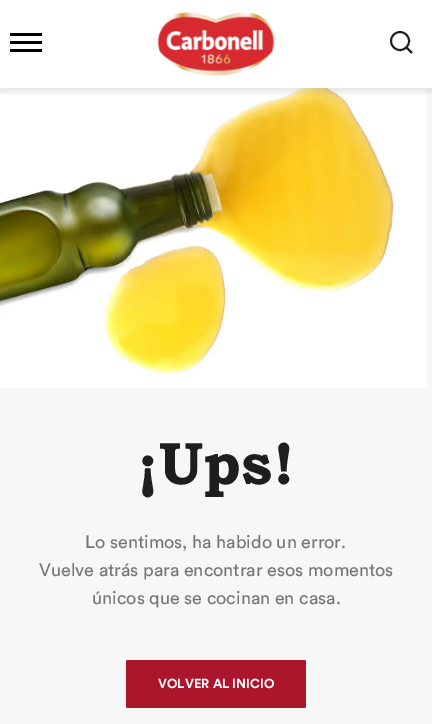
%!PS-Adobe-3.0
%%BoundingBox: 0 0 432 724
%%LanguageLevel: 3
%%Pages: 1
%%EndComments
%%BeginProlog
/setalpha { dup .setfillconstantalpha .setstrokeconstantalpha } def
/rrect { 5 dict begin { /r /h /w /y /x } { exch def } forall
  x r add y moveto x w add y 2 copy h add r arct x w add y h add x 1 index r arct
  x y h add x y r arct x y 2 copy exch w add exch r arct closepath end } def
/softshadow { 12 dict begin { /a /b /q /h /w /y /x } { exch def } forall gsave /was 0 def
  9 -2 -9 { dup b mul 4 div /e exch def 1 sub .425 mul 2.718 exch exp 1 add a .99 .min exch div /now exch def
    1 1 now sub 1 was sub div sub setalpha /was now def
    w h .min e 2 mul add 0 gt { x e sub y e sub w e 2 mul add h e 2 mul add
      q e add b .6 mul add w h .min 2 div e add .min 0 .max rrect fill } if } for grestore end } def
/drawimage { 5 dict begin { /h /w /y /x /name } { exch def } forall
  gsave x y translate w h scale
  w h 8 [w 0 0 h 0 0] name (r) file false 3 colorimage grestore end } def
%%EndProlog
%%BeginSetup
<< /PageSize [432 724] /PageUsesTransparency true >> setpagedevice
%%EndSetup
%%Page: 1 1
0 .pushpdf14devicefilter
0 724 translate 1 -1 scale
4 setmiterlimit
1 setgray
0 0 432 724 rectfill
0.969 setgray
0 88 432 636 rectfill
(images/2.raw) 0 88 427 300 drawimage
gsave
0 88 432 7 rectclip
0 setgray
0 4 432 88 0 3.5 0.1 softshadow
grestore
0 setgray
10 33 32 3 rectfill
10 41 32 3 rectfill
10 49 32 3 rectfill
(images/1.raw) 157 12 118 64 drawimage
0.118 setgray
1.9 setlinewidth
newpath 400 41 9 0 360 arc closepath stroke
newpath 412 53 moveto 406.5 47.5 lineto stroke
0.675 0.086 0.173 setrgbcolor
126 660 180 48 2 rrect fill
/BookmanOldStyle-Bold [60 0 0 -60 0 0] selectfont
0.118 setgray
137 484 moveto (¡Ups!) show
/Circular-Regular [18 0 0 -18 0 0] selectfont
0.459 setgray
85 548 moveto (Lo sentimos, ha habido un error.) show
39 576 moveto (Vuelve atrás para encontrar esos momentos) show
92 604 moveto (únicos que se cocinan en casa.) show
/Circular-Bold [13 0 0 -13 0 0] selectfont
1 setgray
158 688 moveto (VOLVER AL INICIO) show
.poppdf14devicefilter showpage
%%EOF
